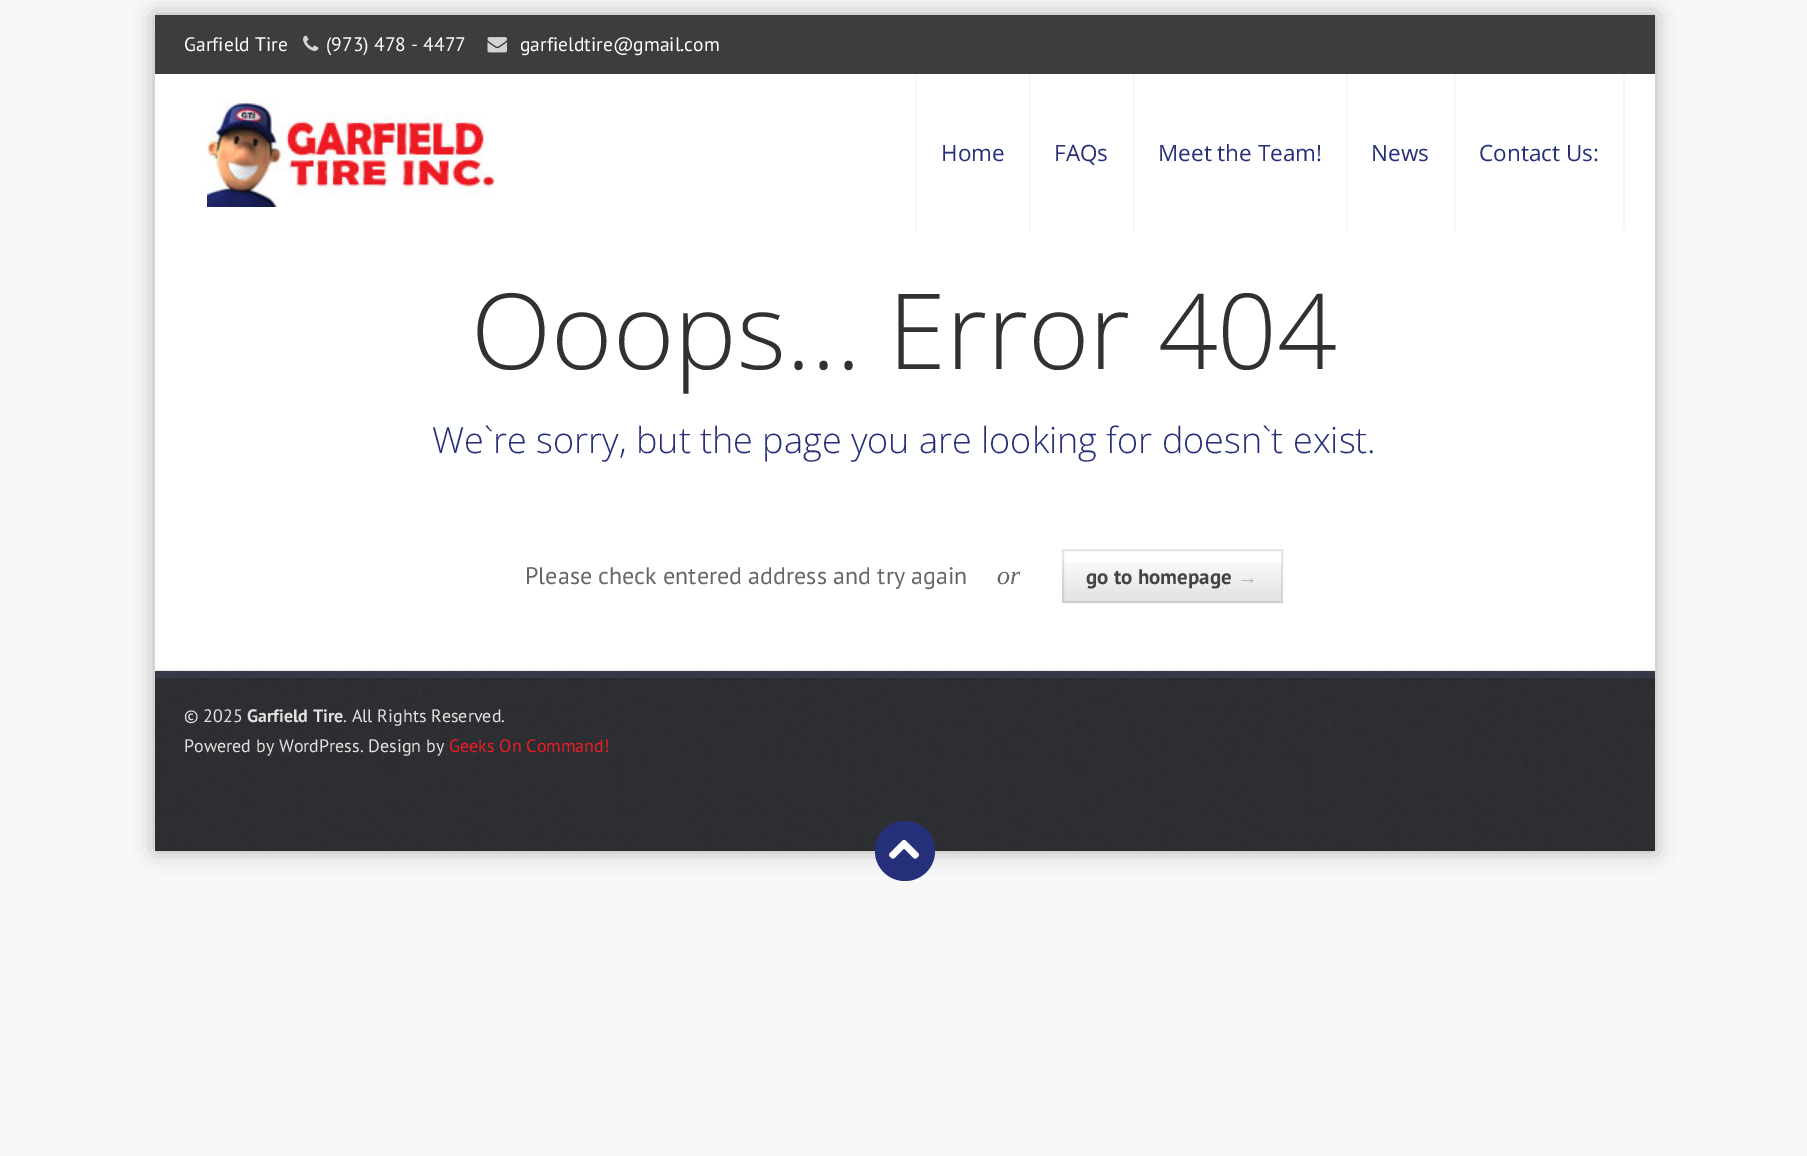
%!PS-Adobe-3.0
%%BoundingBox: 0 0 1807 1156
%%LanguageLevel: 3
%%Pages: 1
%%EndComments
%%BeginProlog
/setalpha { dup .setfillconstantalpha .setstrokeconstantalpha } def
/rrect { 5 dict begin { /r /h /w /y /x } { exch def } forall
  x r add y moveto x w add y 2 copy h add r arct x w add y h add x 1 index r arct
  x y h add x y r arct x y 2 copy exch w add exch r arct closepath end } def
/softshadow { 12 dict begin { /a /b /q /h /w /y /x } { exch def } forall gsave /was 0 def
  9 -2 -9 { dup b mul 4 div /e exch def 1 sub .425 mul 2.718 exch exp 1 add a .99 .min exch div /now exch def
    1 1 now sub 1 was sub div sub setalpha /was now def
    w h .min e 2 mul add 0 gt { x e sub y e sub w e 2 mul add h e 2 mul add
      q e add b .6 mul add w h .min 2 div e add .min 0 .max rrect fill } if } for grestore end } def
/drawimage { 5 dict begin { /h /w /y /x /name } { exch def } forall
  gsave x y translate w h scale
  w h 8 [w 0 0 h 0 0] name (r) file false 3 colorimage grestore end } def
%%EndProlog
%%BeginSetup
<< /PageSize [1807 1156] /PageUsesTransparency true >> setpagedevice
%%EndSetup
%%Page: 1 1
0 .pushpdf14devicefilter
0 1156 translate 1 -1 scale
4 setmiterlimit
0.973 setgray
0 0 1807 1156 rectfill
0 setgray
155 15 1500 836 0 11 0.3 softshadow
1 setgray
155 74 1500 597 rectfill
0.239 setgray
155 15 1500 59 rectfill
(images/1.raw) 154 15 1 59 drawimage
(images/2.raw) 303 35 16 16 drawimage
(images/3.raw) 487 37 20 16 drawimage
(images/4.raw) 207 100 289 107 drawimage
0.969 setgray
1623 74 2 157 rectfill
915 74 2 157 rectfill
1029 74 2 157 rectfill
1133 74 2 157 rectfill
1346 74 2 157 rectfill
1454 74 2 157 rectfill
(images/5.raw) 1062 562 221 41 drawimage
0.1 setalpha
0 setgray
2 setlinewidth
1063 550 219 52 rectstroke
1 setalpha
0.161 0.173 0.188 setrgbcolor
155 678 1500 173 rectfill
(images/6.raw) 154 670 1501 181 drawimage
0.216 0.224 0.282 setrgbcolor
155 671 1500 7 rectfill
0.09 setalpha
0 setgray
185 678 1439 1 rectfill
1 setalpha
0.149 0.184 0.478 setrgbcolor
newpath 905 851 30 0 360 arc closepath fill
(images/7.raw) 889 839 30 20 drawimage
/PTSans-Regular [19.5 0 0 -19.5 0 0] selectfont
1 setgray
184 51 moveto (Garfield Tire) show
326 51 moveto (\(973\) 478 - 4477) show
520 51 moveto (garfieldtire@gmail.com) show
/OpenSans-Regular [22.5 0 0 -22.5 0 0] selectfont
0.149 0.184 0.478 setrgbcolor
941 161 moveto (Home) show
1054 161 moveto (FAQs) show
1158 161 moveto (Meet the Team!) show
1371 161 moveto (News) show
1479 161 moveto (Contact Us:) show
/OpenSans-Light [105 0 0 -105 0 0] selectfont
0.192 setgray
471 369 moveto (Ooops... Error 404) show
/OpenSans-Light [36 0 0 -36 0 0] selectfont
0.149 0.184 0.478 setrgbcolor
432 453 moveto (We`re sorry, but the page you are looking for doesn`t exist.) show
/PTSans-Regular [24 0 0 -24 0 0] selectfont
0.4 setgray
525 584 moveto (Please check entered address and try again) show
/LiberationSerif-Italic [26 0 0 -26 0 0] selectfont
997 584 moveto (or) show
/PTSans-Bold [21 0 0 -21 0 0] selectfont
0.271 0.267 0.267 setrgbcolor
1086 584 moveto (go to homepage) show
/LiberationSans-Bold [21 0 0 -21 0 0] selectfont
0.714 setgray
1237 584 moveto (→) show
/PTSans-Regular [18 0 0 -18 0 0] selectfont
0.882 setgray
184 722 moveto (© 2025) show
/PTSans-Bold [18 0 0 -18 0 0] selectfont
247 722 moveto (Garfield Tire) show
/PTSans-Regular [18 0 0 -18 0 0] selectfont
343 722 moveto (. All Rights Reserved.) show
184 752 moveto (Powered by WordPress. Design by) show
0.929 0.11 0.141 setrgbcolor
449 752 moveto (Geeks On Command!) show
.poppdf14devicefilter showpage
%%EOF
